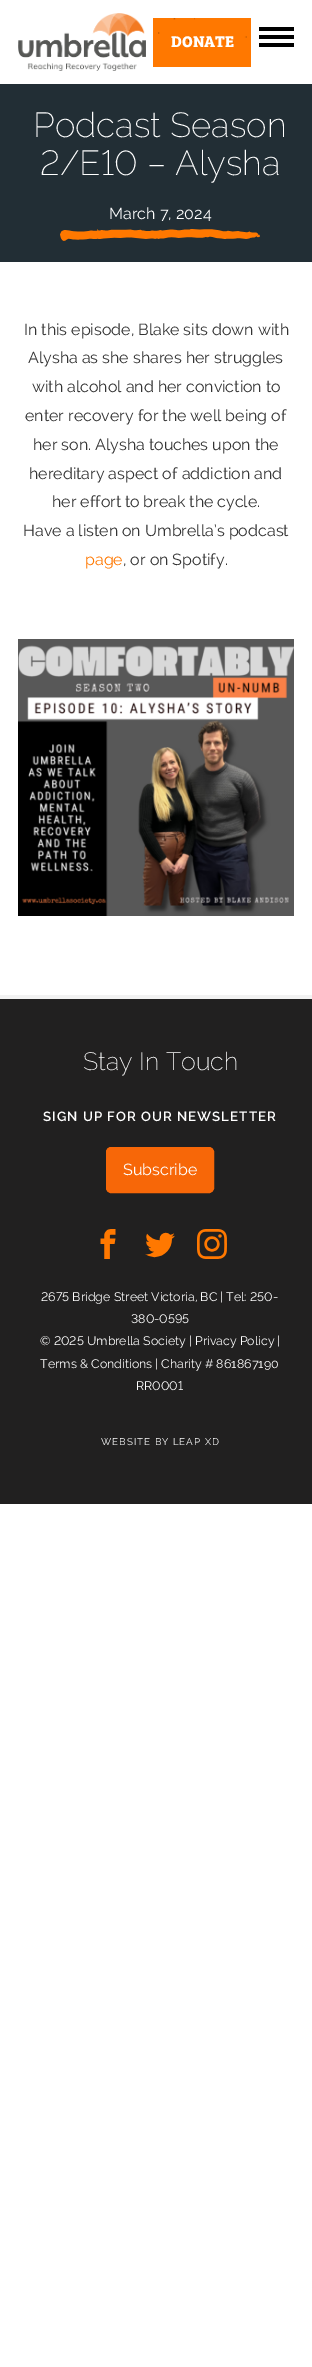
%!PS-Adobe-3.0
%%BoundingBox: 0 0 312 2367
%%LanguageLevel: 3
%%Pages: 1
%%EndComments
%%BeginProlog
/rrect { 5 dict begin { /r /h /w /y /x } { exch def } forall
  x r add y moveto x w add y 2 copy h add r arct x w add y h add x 1 index r arct
  x y h add x y r arct x y 2 copy exch w add exch r arct closepath end } def
/drawimage { 5 dict begin { /h /w /y /x /name } { exch def } forall
  gsave x y translate w h scale
  w h 8 [w 0 0 h 0 0] name (r) file false 3 colorimage grestore end } def
%%EndProlog
%%BeginSetup
<< /PageSize [312 2367] >> setpagedevice
%%EndSetup
%%Page: 1 1
0 2367 translate 1 -1 scale
4 setmiterlimit
1 setgray
0 0 312 2367 rectfill
(images/1.raw) 18 13 128 58 drawimage
1 0.471 0 setrgbcolor
153 18 98 49 rectfill
(images/2.raw) 158 18 89 25 drawimage
0 setgray
259 27 35 4 rectfill
259 35 35 4 rectfill
259 43 35 4 rectfill
0.133 0.18 0.208 setrgbcolor
0 84 312 178 rectfill
(images/3.raw) 60 229 200 12 drawimage
(images/4.raw) 18 639 276 277 drawimage
0.129 0.125 0.125 setrgbcolor
0 999 312 505 rectfill
0.949 setgray
0 995 312 4 rectfill
0.969 0.404 0.031 setrgbcolor
106.5 1147.5 107 45 4.5 rrect gsave fill grestore
stroke
(images/5.raw) 100 1229 16 30 drawimage
(images/6.raw) 145 1232 30 26 drawimage
(images/7.raw) 197 1229 30 30 drawimage
/BreeSerif-Bold [16 0 0 -16 0 0] selectfont
1 setgray
171 47 moveto (DONATE) show
/Raleway-ExtraLight [34.75 0 0 -34.75 0 0] selectfont
33 137 moveto (Podcast Season) show
/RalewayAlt-ExtraLight [34.75 0 0 -34.75 0 0] selectfont
40 175 moveto (2/E10 – Alysha) show
/Raleway-Regular [16 0 0 -16 0 0] selectfont
109 219 moveto (March 7, 2024) show
0.2 setgray
24 335 moveto (In this episode, Blake sits down with) show
28 363 moveto (Alysha as she shares her struggles) show
32 392 moveto (with alcohol and her conviction to) show
25 421 moveto (enter recovery for the well being of) show
33 450 moveto (her son. Alysha touches upon the) show
29 479 moveto (hereditary aspect of addiction and) show
52 507 moveto -0.25 0 32 (her effort to break the cycle.) widthshow
23 536 moveto (Have a listen on Umbrella’s podcast) show
1 0.471 0 setrgbcolor
85 565 moveto (page) show
0.2 setgray
123 565 moveto (, or on Spotify.) show
/Raleway-ExtraLight [25 0 0 -25 0 0] selectfont
1 setgray
83 1070 moveto (Stay In Touch) show
/Raleway-SemiBold [13.3 0 0 -13.3 0 0] selectfont
43 1121 moveto 1 0 (SIGN UP FOR OUR NEWSLETTER) ashow
/Raleway-Regular [16 0 0 -16 0 0] selectfont
123 1175 moveto (Subscribe) show
/RalewayAlt-Regular [12.4 0 0 -12.4 0 0] selectfont
41 1301 moveto (2675 Bridge Street Victoria, BC | Tel: 250-) show
131 1323 moveto (380-0595) show
40 1345 moveto (© 2025 Umbrella Society |) show
/Raleway-Regular [12.4 0 0 -12.4 0 0] selectfont
195 1345 moveto (Privacy Policy |) show
40 1368 moveto (Terms & Conditions | Charity # 861867190) show
/RalewayAlt-Regular [12.4 0 0 -12.4 0 0] selectfont
136 1390 moveto (RR0001) show
/Raleway-Regular [9.75 0 0 -9.75 0 0] selectfont
101 1445 moveto 1 0 (WEBSITE BY LEAP XD) ashow
showpage
%%EOF
